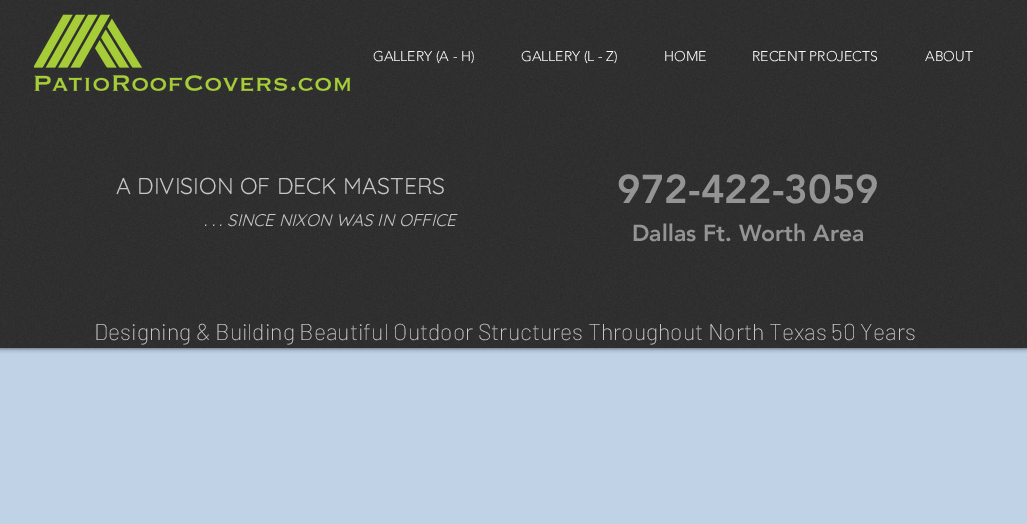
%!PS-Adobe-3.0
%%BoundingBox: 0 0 1027 524
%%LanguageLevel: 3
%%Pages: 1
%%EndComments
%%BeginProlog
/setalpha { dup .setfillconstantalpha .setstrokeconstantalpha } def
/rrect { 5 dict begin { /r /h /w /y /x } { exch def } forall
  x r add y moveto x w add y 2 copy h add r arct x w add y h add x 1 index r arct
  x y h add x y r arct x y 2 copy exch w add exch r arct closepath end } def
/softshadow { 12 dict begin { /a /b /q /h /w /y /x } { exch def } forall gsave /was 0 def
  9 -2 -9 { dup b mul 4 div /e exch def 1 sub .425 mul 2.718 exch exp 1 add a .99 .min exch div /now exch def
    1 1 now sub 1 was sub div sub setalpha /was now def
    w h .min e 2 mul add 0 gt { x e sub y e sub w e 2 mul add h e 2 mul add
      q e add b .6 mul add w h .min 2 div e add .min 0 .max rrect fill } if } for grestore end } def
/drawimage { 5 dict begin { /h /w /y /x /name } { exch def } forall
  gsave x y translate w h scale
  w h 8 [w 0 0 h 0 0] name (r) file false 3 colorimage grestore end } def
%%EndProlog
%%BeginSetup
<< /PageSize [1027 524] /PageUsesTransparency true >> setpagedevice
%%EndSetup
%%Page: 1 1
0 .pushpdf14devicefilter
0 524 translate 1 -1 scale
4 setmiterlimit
0.753 0.824 0.898 setrgbcolor
0 0 1027 524 rectfill
0 setgray
0 0 1027 348 0 2.5 0.7 softshadow
0.184 0.18 0.18 setrgbcolor
0 0 1027 348 rectfill
(images/1.raw) 0 0 1027 348 drawimage
(images/2.raw) 34 14 317 78 drawimage
/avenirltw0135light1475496-Light [14 0 0 -14 0 0] selectfont
1 setgray
373 61 moveto (GALLERY \(A - H\)) show
521 61 moveto (GALLERY \(L - Z\)) show
664 61 moveto (HOME) show
752 61 moveto (RECENT PROJECTS) show
925 61 moveto (ABOUT) show
/Quicksand-Regular [23 0 0 -23 0 0] selectfont
0.776 setgray
116 194 moveto (A DIVISION OF DECK MASTERS) show
/Quicksand-Italic [17 0 0 -17 0 0] selectfont
204 226 moveto (. . . SINCE NIXON WAS IN OFFICE) show
/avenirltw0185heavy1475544-Black [40 0 0 -40 0 0] selectfont
0.58 setgray
617 203 moveto (972-422-3059) show
/avenirltw0185heavy1475544-Black [23 0 0 -23 0 0] selectfont
632 241 moveto (Dallas Ft. Worth Area) show
/Barlow-ExtraLight [23 0 0 -23 0 0] selectfont
0.776 setgray
94 340 moveto (Designing & Building Beautiful Outdoor Structures Throughout North Texas 50 Years) show
.poppdf14devicefilter showpage
%%EOF
